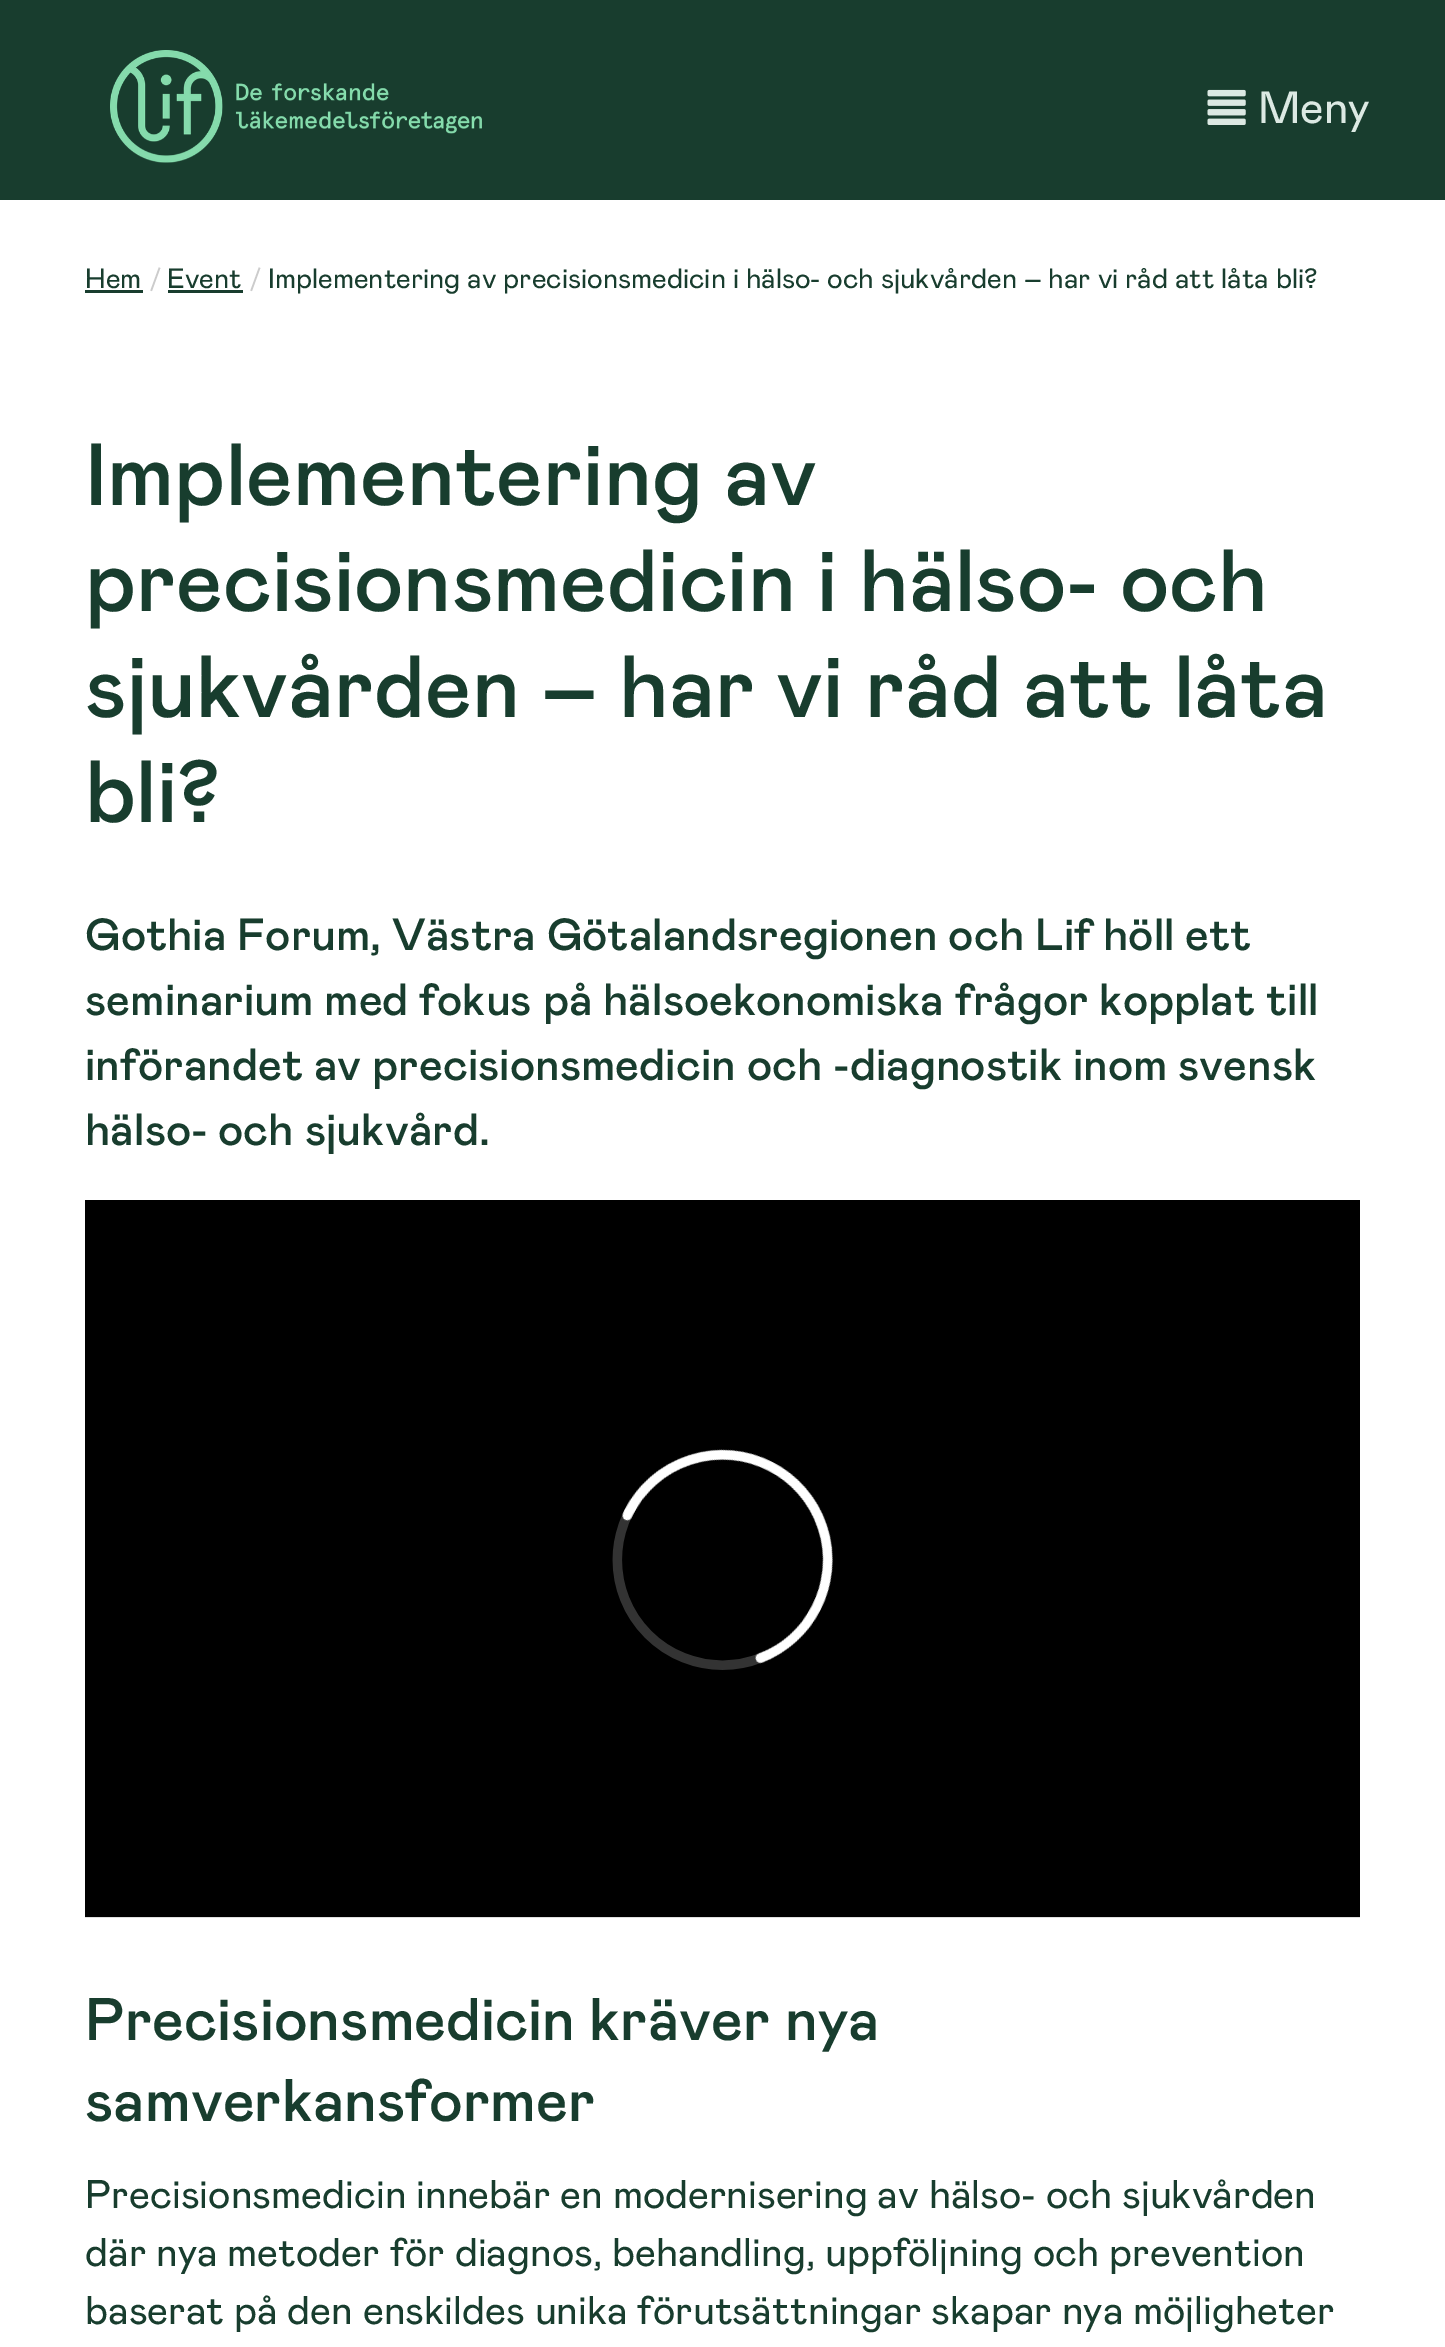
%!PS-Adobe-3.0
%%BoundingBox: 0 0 1445 2347
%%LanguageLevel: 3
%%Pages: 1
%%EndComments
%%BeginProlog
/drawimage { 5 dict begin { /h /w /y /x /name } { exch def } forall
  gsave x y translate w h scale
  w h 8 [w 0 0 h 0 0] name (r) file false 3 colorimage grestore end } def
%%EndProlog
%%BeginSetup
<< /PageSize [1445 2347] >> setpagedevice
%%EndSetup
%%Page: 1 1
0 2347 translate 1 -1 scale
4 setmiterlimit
1 setgray
0 0 1445 2347 rectfill
0.094 0.239 0.18 setrgbcolor
0 0 1445 200 rectfill
(images/1.raw) 110 50 372 113 drawimage
(images/2.raw) 1207 89 39 36 drawimage
85 290 58 3 rectfill
168 290 75 3 rectfill
(images/3.raw) 85 1200 1275 718 drawimage
/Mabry-Regular [45 0 0 -45 0 0] selectfont
0.863 0.914 0.89 setrgbcolor
1258 123 moveto (Meny) show
/Mabry-Regular [28 0 0 -28 0 0] selectfont
0.094 0.239 0.18 setrgbcolor
85 288 moveto (Hem) show
/Mabry-Regular [25 0 0 -25 0 0] selectfont
0.8 setgray
149 288 moveto (/) show
/Mabry-Regular [28 0 0 -28 0 0] selectfont
0.094 0.239 0.18 setrgbcolor
167 288 moveto (Event) show
/Mabry-Regular [25 0 0 -25 0 0] selectfont
0.8 setgray
249 288 moveto (/) show
/Mabry-Regular [28 0 0 -28 0 0] selectfont
0.094 0.239 0.18 setrgbcolor
268 288 moveto (Implementering av precisionsmedicin i hälso- och sjukvården – har vi råd att låta bli?) show
/Mabry-Medium [88 0 0 -88 0 0] selectfont
85 505 moveto (Implementering av) show
85 611 moveto (precisionsmedicin i hälso- och) show
85 717 moveto (sjukvården – har vi råd att låta) show
85 822 moveto (bli?) show
/Mabry-Medium [45 0 0 -45 0 0] selectfont
85 950 moveto (Gothia Forum, Västra Götalandsregionen och Lif höll ett) show
85 1015 moveto (seminarium med fokus på hälsoekonomiska frågor kopplat till) show
85 1080 moveto (införandet av precisionsmedicin och -diagnostik inom svensk) show
85 1145 moveto (hälso- och sjukvård.) show
/Mabry-Medium [60 0 0 -60 0 0] selectfont
85 2040 moveto (Precisionsmedicin kräver nya) show
85 2121 moveto (samverkansformer) show
/Mabry-Regular [40 0 0 -40 0 0] selectfont
85 2208 moveto (Precisionsmedicin innebär en modernisering av hälso- och sjukvården) show
85 2266 moveto (där nya metoder för diagnos, behandling, uppföljning och prevention) show
85 2324 moveto (baserat på den enskildes unika förutsättningar skapar nya möjligheter) show
showpage
%%EOF
